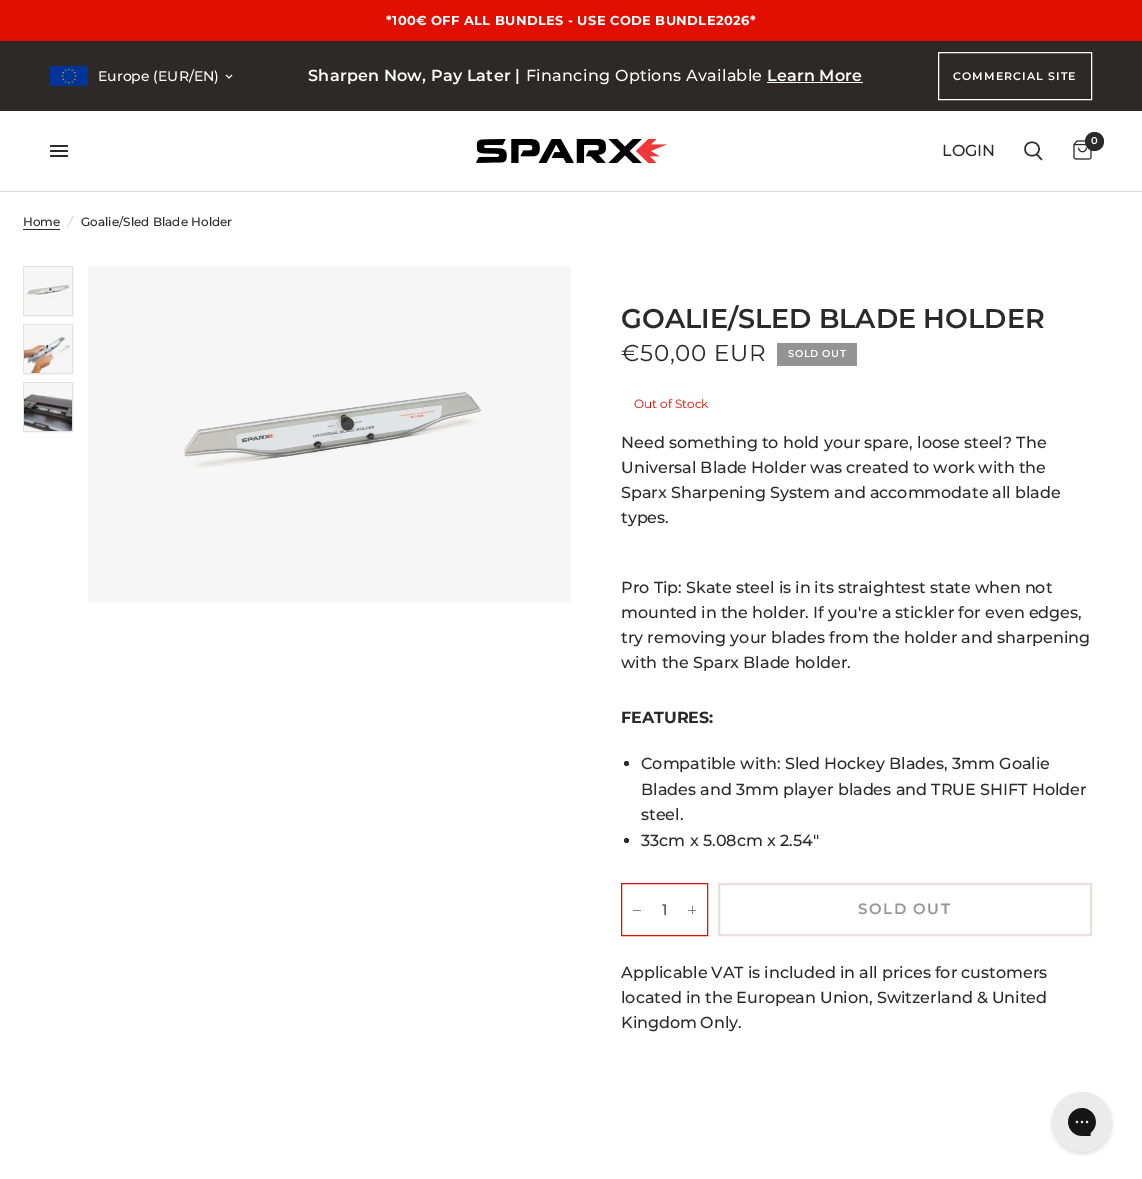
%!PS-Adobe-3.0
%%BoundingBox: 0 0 1142 1179
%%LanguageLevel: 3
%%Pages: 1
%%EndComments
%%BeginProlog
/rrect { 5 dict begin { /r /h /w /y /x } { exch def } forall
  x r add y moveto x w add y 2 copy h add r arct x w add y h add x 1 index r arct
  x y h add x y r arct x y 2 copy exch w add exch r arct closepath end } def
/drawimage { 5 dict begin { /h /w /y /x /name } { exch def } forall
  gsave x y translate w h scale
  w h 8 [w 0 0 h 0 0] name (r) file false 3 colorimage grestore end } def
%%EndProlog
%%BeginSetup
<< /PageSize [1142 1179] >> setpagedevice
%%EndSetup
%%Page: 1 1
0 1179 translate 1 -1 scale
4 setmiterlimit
1 setgray
0 0 1142 1179 rectfill
0.878 0.059 0 setrgbcolor
0 0 1142 41 rectfill
0.176 0.161 0.149 setrgbcolor
0 41 1142 70 rectfill
(images/1.raw) 50 66 38 20 drawimage
1 setgray
newpath 226 75 moveto 229 78 lineto 232 75 lineto stroke
767 82 96 1 rectfill
938.5 52.5 153 47 rectstroke
0.851 0.851 0.839 setrgbcolor
0 191 1142 1 rectfill
0.165 0.165 0.169 setrgbcolor
50 145 18 2 1 rrect fill
50 150 18 2 1 rrect fill
50 155 18 2 1 rrect fill
(images/2.raw) 476 139 191 24 drawimage
1.4 setlinewidth
1 setlinecap
1 setlinejoin
newpath 1037 154.5 moveto 1041.5 159.5 lineto 1039 149 moveto 1039 158 1025 158 1025 149 curveto 1025 140 1039 140 1039 149 curveto closepath stroke
(images/3.raw) 1073 140 19 20 drawimage
newpath 1094.5 141.5 9.5 0 360 arc closepath fill
23 229 37 1 rectfill
0.886 setgray
1 setlinewidth
0 setlinecap
0 setlinejoin
23.5 266.5 49 49 rectstroke
(images/4.raw) 24 267 48 48 drawimage
23.5 324.5 49 49 rectstroke
(images/5.raw) 24 325 48 48 drawimage
23.5 382.5 49 49 rectstroke
(images/6.raw) 24 383 48 48 drawimage
0.969 setgray
88 266 483 337 rectfill
(images/7.raw) 184 392 298 76 drawimage
0.576 setgray
777 343 80 23 rectfill
0.165 0.165 0.169 setrgbcolor
newpath 626.5 763.5 2.5 0 360 arc closepath fill
newpath 626.5 840.5 2.5 0 360 arc closepath fill
0.878 0.059 0 setrgbcolor
621.5 883.5 86 52 rectstroke
0.498 0.498 0.502 setrgbcolor
633 910 8 1 rectfill
692 906 1 8 rectfill
688 910 8 1 rectfill
0.922 0.878 0.878 setrgbcolor
2 setlinewidth
719 884 372 51 rectstroke
(images/8.raw) 1050 1092 64 64 drawimage
/Montserrat-Bold [13 0 0 -13 0 0] selectfont
1 setgray
386 25 moveto 0.4 0 (*100€ OFF ALL BUNDLES - USE CODE BUNDLE2026*) ashow
/Montserrat-Medium [14 0 0 -14 0 0] selectfont
98 81 moveto (Europe \(EUR/EN\)) show
/Montserrat-SemiBold [16 0 0 -16 0 0] selectfont
308 81 moveto -0.5 0 32 0.3 0 (Sharpen Now, Pay Later |) awidthshow
/Montserrat-Medium [16 0 0 -16 0 0] selectfont
526 81 moveto 0.3 0 (Financing Options Available) ashow
/Montserrat-SemiBold [16 0 0 -16 0 0] selectfont
767 81 moveto -1 0 32 0.3 0 (Learn More) awidthshow
/Montserrat-SemiBold [11 0 0 -11 0 0] selectfont
953 80 moveto 1.1 0 (COMMERCIAL SITE) ashow
/Montserrat-Medium [16 0 0 -16 0 0] selectfont
0.165 0.165 0.169 setrgbcolor
942 156 moveto (LOGIN) show
/Montserrat-SemiBold [10 0 0 -10 0 0] selectfont
1 setgray
1091 144 moveto (0) show
/Montserrat-Medium [12 0 0 -12 0 0] selectfont
0.165 0.165 0.169 setrgbcolor
23 226 moveto (Home) show
/Montserrat-MediumItalic [12 0 0 -12 0 0] selectfont
0.831 0.831 0.835 setrgbcolor
68 226 moveto (/) show
/Montserrat-Medium [12 0 0 -12 0 0] selectfont
0.165 0.165 0.169 setrgbcolor
81 226 moveto (Goalie/Sled Blade Holder) show
/Montserrat-SemiBold [27 0 0 -27 0 0] selectfont
621 328 moveto (GOALIE/SLED BLADE HOLDER) show
/Montserrat-Regular [23 0 0 -23 0 0] selectfont
621 361 moveto 0.75 0 (€50,00 EUR) ashow
/Montserrat-SemiBold [10 0 0 -10 0 0] selectfont
1 setgray
788 357 moveto 0.5 0 (SOLD OUT) ashow
/Montserrat-Regular [12 0 0 -12 0 0] selectfont
0.878 0.059 0 setrgbcolor
634 408 moveto (Out of Stock) show
/Montserrat-Medium [16 0 0 -16 0 0] selectfont
0.165 0.165 0.169 setrgbcolor
621 448 moveto (Need something to hold your spare, loose steel? The) show
621 473 moveto -0.25 0 32 (Universal Blade Holder was created to work with the) widthshow
621 498 moveto -0.25 0 32 (Sparx Sharpening System and accommodate all blade) widthshow
621 523 moveto (types.) show
621 593 moveto (Pro Tip:) show
686 593 moveto -0.25 0 32 (Skate steel is in its straightest state when not) widthshow
621 618 moveto -0.1 0 32 (mounted in the holder. If you're a stickler for even edges,) widthshow
621 643 moveto (try removing your blades from the holder and sharpening) show
621 668 moveto (with the Sparx Blade holder.) show
/Montserrat-Bold [16 0 0 -16 0 0] selectfont
621 723 moveto (FEATURES:) show
/Montserrat-Medium [16 0 0 -16 0 0] selectfont
641 769 moveto (Compatible with: Sled Hockey Blades, 3mm Goalie) show
641 795 moveto (Blades and 3mm player blades and TRUE SHIFT Holder) show
641 820 moveto (steel.) show
641 846 moveto (33cm x 5.08cm x 2.54") show
/Montserrat-Regular [15 0 0 -15 0 0] selectfont
662 915 moveto (1) show
/Montserrat-SemiBold [15 0 0 -15 0 0] selectfont
0.584 setgray
858 914 moveto 1.5 0 (SOLD OUT) ashow
/Montserrat-Medium [16 0 0 -16 0 0] selectfont
0.165 0.165 0.169 setrgbcolor
621 978 moveto -0.25 0 32 (Applicable VAT is included in all prices for customers) widthshow
621 1003 moveto -0.25 0 32 (located in the European Union, Switzerland & United) widthshow
621 1028 moveto -1 0 32 (Kingdom Only.) widthshow
showpage
%%EOF
